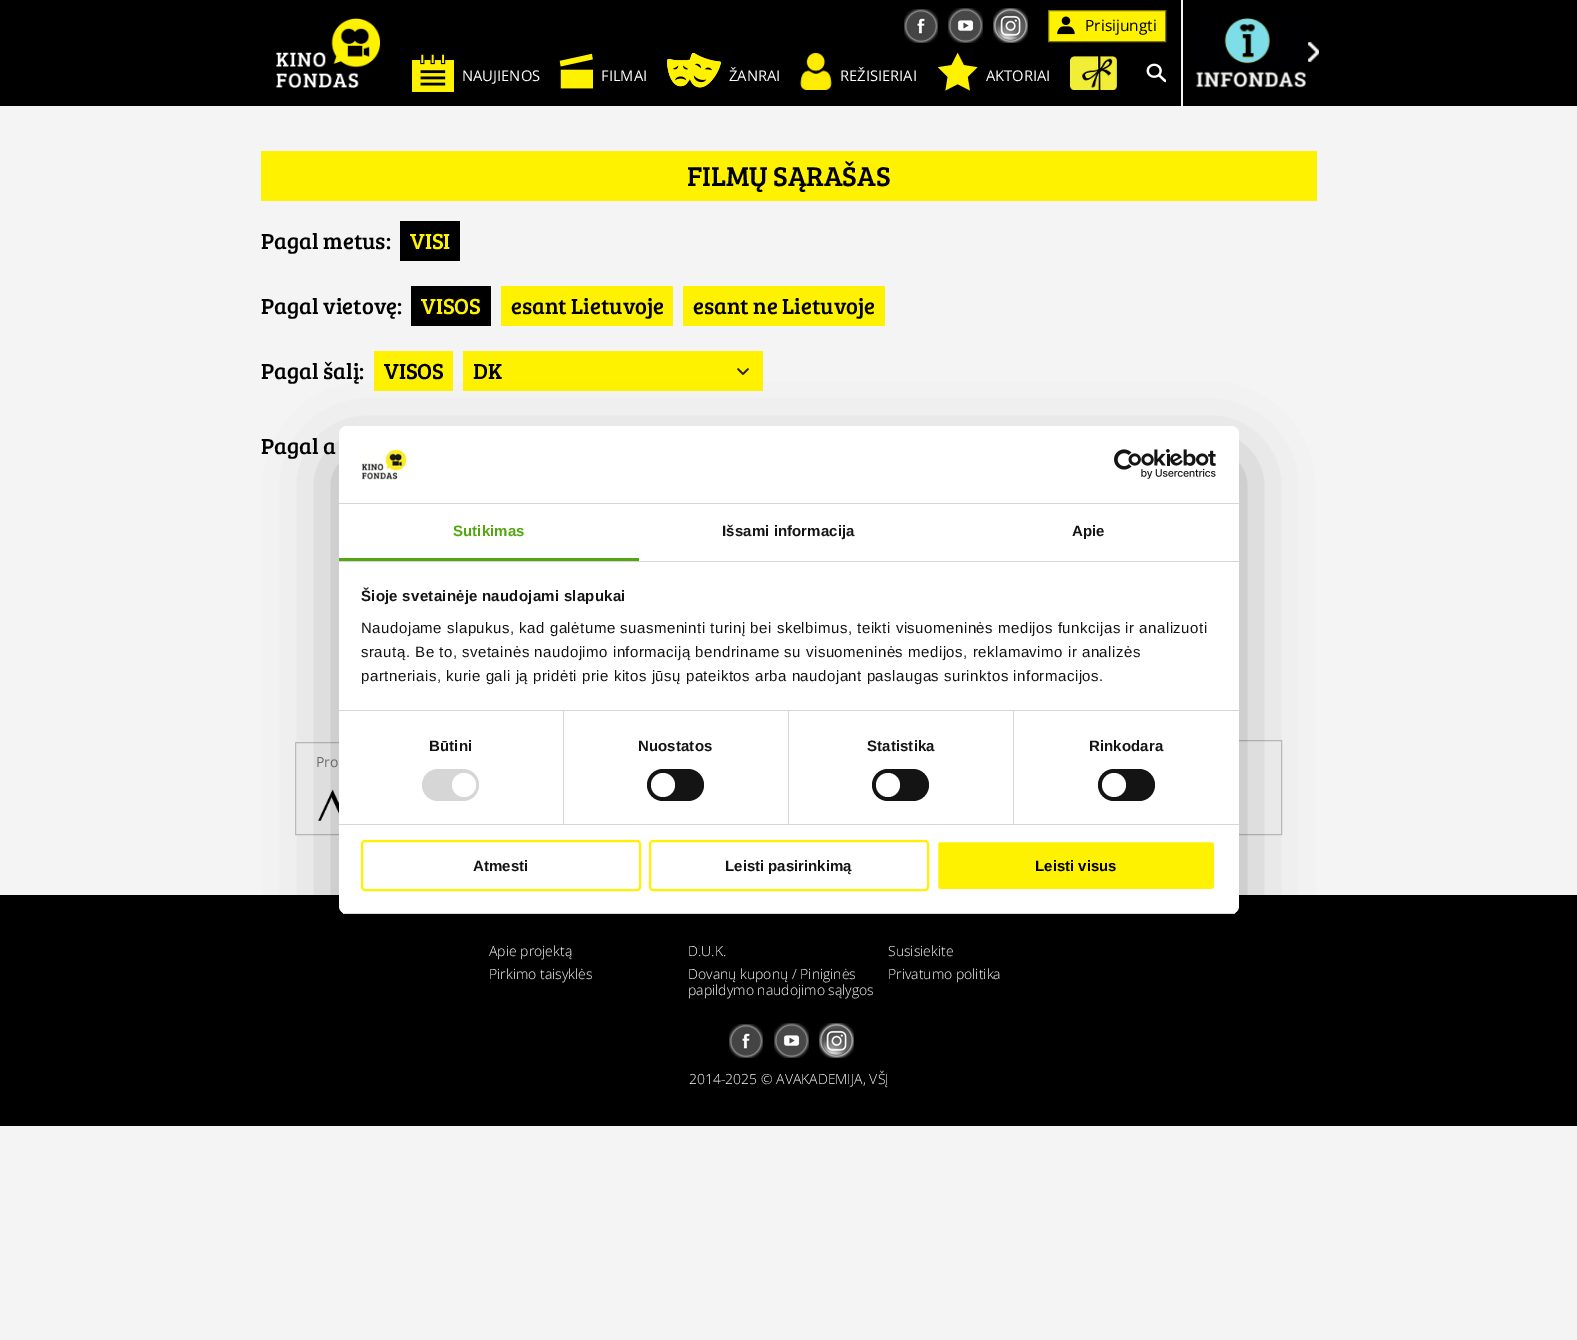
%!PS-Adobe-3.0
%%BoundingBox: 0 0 1577 1340
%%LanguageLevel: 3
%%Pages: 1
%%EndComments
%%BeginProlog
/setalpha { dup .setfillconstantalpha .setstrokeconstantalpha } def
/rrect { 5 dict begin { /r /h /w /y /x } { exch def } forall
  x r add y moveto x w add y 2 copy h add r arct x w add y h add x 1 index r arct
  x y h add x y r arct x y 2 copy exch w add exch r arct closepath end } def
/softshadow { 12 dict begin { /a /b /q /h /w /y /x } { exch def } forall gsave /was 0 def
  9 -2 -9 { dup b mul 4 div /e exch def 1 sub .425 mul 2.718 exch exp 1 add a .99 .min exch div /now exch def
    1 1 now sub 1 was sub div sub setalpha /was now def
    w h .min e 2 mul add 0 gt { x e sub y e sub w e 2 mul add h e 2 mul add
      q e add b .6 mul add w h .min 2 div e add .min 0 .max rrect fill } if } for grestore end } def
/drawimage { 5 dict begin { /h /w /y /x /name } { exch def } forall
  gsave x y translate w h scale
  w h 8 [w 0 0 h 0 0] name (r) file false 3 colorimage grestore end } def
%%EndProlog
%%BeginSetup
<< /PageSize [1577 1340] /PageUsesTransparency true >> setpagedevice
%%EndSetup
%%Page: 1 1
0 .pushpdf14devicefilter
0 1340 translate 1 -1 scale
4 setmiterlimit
0.957 setgray
0 0 1577 1340 rectfill
0 setgray
0 0 1577 106 rectfill
(images/1.raw) 276 18 104 70 drawimage
(images/2.raw) 904 9 34 34 drawimage
(images/3.raw) 948 8 35 35 drawimage
(images/4.raw) 993 8 35 35 drawimage
1 0.949 0 setrgbcolor
newpath 1048.5 10.5 moveto 1165.5 10.5 lineto 1165.5 41.5 lineto 1048.5 41.5 lineto closepath gsave fill grestore
0.498 0.475 0 setrgbcolor
stroke
(images/5.raw) 1057 16 18 19 drawimage
(images/6.raw) 412 53 42 39 drawimage
(images/7.raw) 559 53 34 36 drawimage
(images/8.raw) 667 53 54 35 drawimage
(images/9.raw) 800 53 32 37 drawimage
(images/10.raw) 937 53 41 38 drawimage
(images/11.raw) 1070 56 47 34 drawimage
(images/12.raw) 1146 63 20 20 drawimage
0.957 setgray
1181 0 2 106 rectfill
(images/13.raw) 1195 18 111 70 drawimage
(images/14.raw) 1308 42 11 20 drawimage
1 0.949 0 setrgbcolor
261 151 1056 50 rectfill
0 setgray
400 221 60 40 rectfill
411 286 80 40 rectfill
1 0.949 0 setrgbcolor
501 286 172 40 rectfill
683 286 202 40 rectfill
374 351 79 40 rectfill
463 351 300 40 rectfill
(images/15.raw) 737 368 12 7 drawimage
0.741 setgray
295.5 742.5 312 92 rectstroke
(images/16.raw) 318 789 21 32 drawimage
969.5 740.5 312 94 rectstroke
0 setgray
0 895 1577 231 rectfill
(images/2.raw) 729 1024 34 34 drawimage
(images/3.raw) 774 1023 35 35 drawimage
(images/4.raw) 819 1023 35 35 drawimage
339 458 900 488 8 34 0.3 softshadow
1 setgray
339 426 900 488 8 rrect fill
0.839 setgray
339 503 900 1 rectfill
(images/17.raw) 361 449 46 31 drawimage
(images/18.raw) 1114 449 102 30 drawimage
339 561 900 1 rectfill
0.325 0.655 0.055 setrgbcolor
339 558 300 3 rectfill
0.839 setgray
339 710 900 1 rectfill
339 824 900 1 rectfill
563 711 1 113 rectfill
422 769 57 32 16 rrect fill
1 setgray
newpath 464 785 12 0 360 arc closepath fill
0.839 setgray
788 711 1 113 rectfill
0.078 setgray
647 769 57 32 16 rrect fill
1 setgray
newpath 663 785 12 0 360 arc closepath fill
0.839 setgray
1013 711 1 113 rectfill
0.078 setgray
872 769 57 32 16 rrect fill
1 setgray
newpath 888 785 12 0 360 arc closepath fill
0.078 setgray
1098 769 57 32 16 rrect fill
1 setgray
newpath 1114 785 12 0 360 arc closepath fill
gsave
339 426 900 488 8 rrect clip newpath
0.839 setgray
339 913 900 1 rectfill
grestore
1 0.949 0 setrgbcolor
2 setlinewidth
362 841 278 49 3 rrect stroke
650 841 278 49 3 rrect stroke
937 841 278 49 3 rrect gsave fill grestore
1 setgray
stroke
/OpenSans-Regular [15.5 0 0 -15.5 0 0] selectfont
0 setgray
1085 31 moveto (Prisijungti) show
/OpenSans-Regular [14.75 0 0 -14.75 0 0] selectfont
1 setgray
462 81 moveto (NAUJIENOS) show
601 81 moveto (FILMAI) show
729 81 moveto (ŽANRAI) show
840 81 moveto (REŽISIERIAI) show
986 81 moveto (AKTORIAI) show
/BreeSerif-Regular [28 0 0 -28 0 0] selectfont
0 setgray
687 186 moveto (FILMŲ SĄRAŠAS) show
/BreeSerif-Regular [22.5 0 0 -22.5 0 0] selectfont
261 249 moveto (Pagal metus:) show
1 0.949 0 setrgbcolor
410 249 moveto (VISI) show
0 setgray
261 314 moveto (Pagal vietovę:) show
1 0.949 0 setrgbcolor
421 314 moveto (VISOS) show
0 setgray
511 314 moveto (esant Lietuvoje) show
693 314 moveto (esant ne Lietuvoje) show
261 379 moveto (Pagal šalį:) show
384 379 moveto (VISOS) show
473 379 moveto (DK) show
261 454 moveto (Pagal a) show
/OpenSans-Regular [14 0 0 -14 0 0] selectfont
0.404 setgray
316 767 moveto (Pro) show
/LiberationSans-Bold [15 0 0 -15 0 0] selectfont
0.325 0.655 0.055 setrgbcolor
453 536 moveto 0.1 0 (Sutikimas) ashow
0.078 setgray
722 536 moveto 0.1 0 (Išsami informacija) ashow
1072 536 moveto 0.1 0 (Apie) ashow
361 601 moveto 0.25 0 (Šioje svetainėje naudojami slapukai) ashow
/LiberationSans-Regular [15 0 0 -15 0 0] selectfont
361 633 moveto 0.5 0 (Naudojame slapukus, kad galėtume suasmeninti turinį bei skelbimus, teikti visuomeninės medijos funkcijas ir analizuoti) ashow
361 657 moveto 0.5 0 (srautą. Be to, svetainės naudojimo informaciją bendriname su visuomeninės medijos, reklamavimo ir analizės) ashow
361 681 moveto 0.5 0 (partneriais, kurie gali ją pridėti prie kitos jūsų pateiktos arba naudojant paslaugas surinktos informacijos.) ashow
/LiberationSans-Bold [15 0 0 -15 0 0] selectfont
429 751 moveto 0.1 0 (Būtini) ashow
638 751 moveto 0.1 0 (Nuostatos) ashow
867 751 moveto 0.1 0 (Statistika) ashow
1089 751 moveto 0.1 0 (Rinkodara) ashow
473 871 moveto (Atmesti) show
725 871 moveto (Leisti pasirinkimą) show
0 setgray
1035 871 moveto (Leisti visus) show
/OpenSans-Light [14 0 0 -14 0 0] selectfont
1 setgray
489 956 moveto (Apie projektą) show
688 956 moveto (D.U.K.) show
888 956 moveto (Susisiekite) show
489 979 moveto (Pirkimo taisyklės) show
688 979 moveto (Dovanų kuponų / Piniginės) show
688 995 moveto (papildymo naudojimo sąlygos) show
888 979 moveto (Privatumo politika) show
689 1084 moveto (2014-2025 © AVAKADEMIJA, VŠĮ) show
.poppdf14devicefilter showpage
%%EOF
